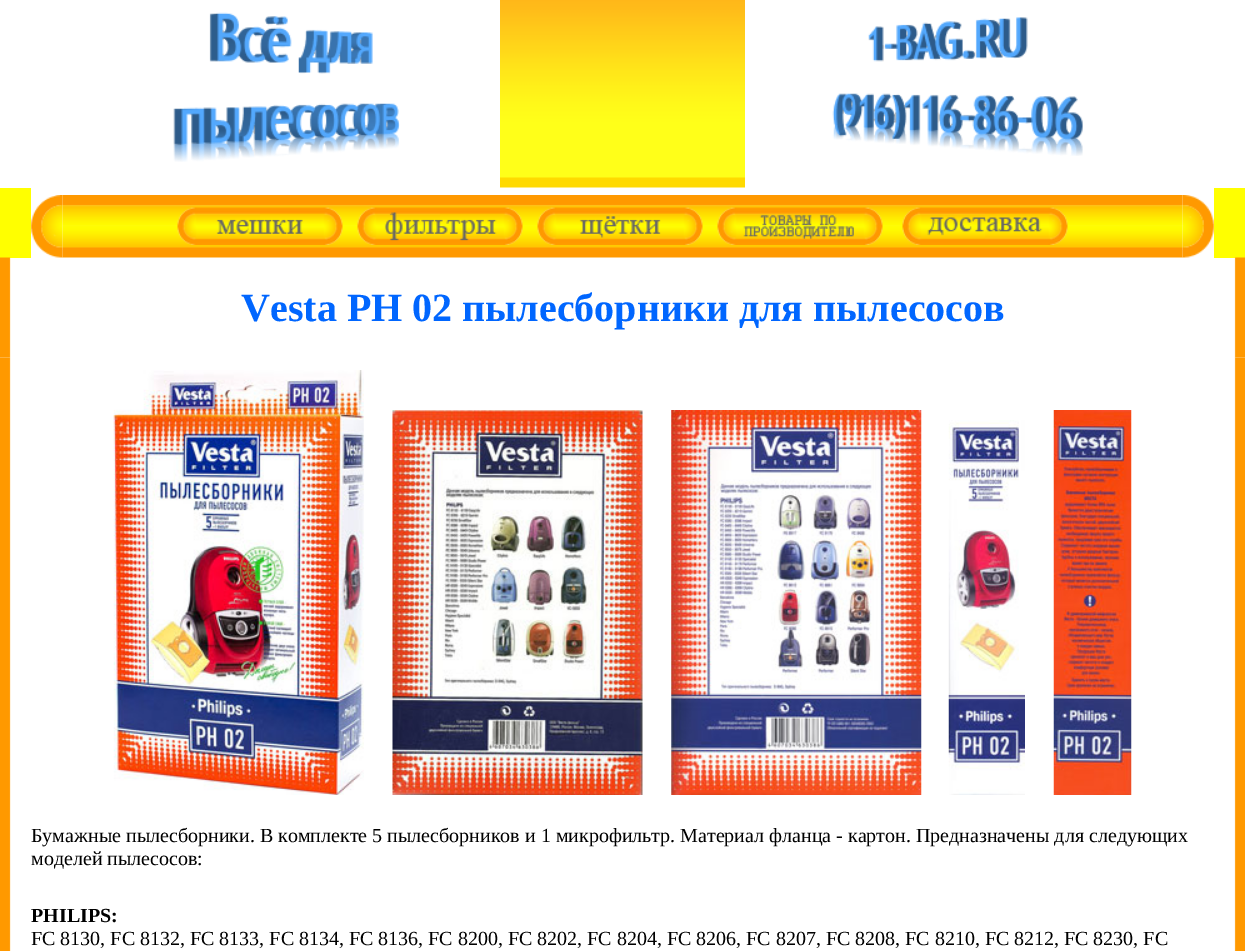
%!PS-Adobe-3.0
%%BoundingBox: 0 0 1245 951
%%LanguageLevel: 3
%%Pages: 1
%%EndComments
%%BeginProlog
/drawimage { 5 dict begin { /h /w /y /x /name } { exch def } forall
  gsave x y translate w h scale
  w h 8 [w 0 0 h 0 0] name (r) file false 3 colorimage grestore end } def
%%EndProlog
%%BeginSetup
<< /PageSize [1245 951] >> setpagedevice
%%EndSetup
%%Page: 1 1
0 951 translate 1 -1 scale
4 setmiterlimit
1 setgray
0 0 1245 951 rectfill
(images/1.raw) 173 12 227 150 drawimage
(images/2.raw) 500 0 245 188 drawimage
(images/3.raw) 832 17 251 139 drawimage
1 1 0 setrgbcolor
0 188 31 70 rectfill
(images/4.raw) 31 195 32 63 drawimage
(images/5.raw) 62 195 1121 63 drawimage
(images/6.raw) 177 207 166 38 drawimage
(images/7.raw) 357 207 166 38 drawimage
(images/8.raw) 537 207 166 38 drawimage
(images/9.raw) 717 207 166 38 drawimage
(images/10.raw) 902 207 166 38 drawimage
(images/11.raw) 1182 195 32 63 drawimage
1214 188 31 70 rectfill
(images/12.raw) 0 257 11 101 drawimage
(images/13.raw) 1234 257 11 101 drawimage
(images/14.raw) 0 357 11 594 drawimage
(images/15.raw) 113 370 251 425 drawimage
(images/16.raw) 392 410 251 385 drawimage
(images/17.raw) 671 410 251 385 drawimage
(images/18.raw) 948 420 77 375 drawimage
(images/19.raw) 1053 410 79 385 drawimage
(images/20.raw) 1234 357 11 594 drawimage
/LiberationSerif-Bold [40 0 0 -40 0 0] selectfont
0 0.4 1 setrgbcolor
241 321 moveto (Vesta PH 02 пылесборники для пылесосов) show
/LiberationSerif-Regular [20 0 0 -20 0 0] selectfont
0 setgray
31 842 moveto (Бумажные пылесборники. В комплекте 5 пылесборников и 1 микрофильтр. Материал фланца - картон. Предназначены для следующих) show
31 865 moveto (моделей пылесосов:) show
/LiberationSerif-Bold [20 0 0 -20 0 0] selectfont
31 922 moveto (PHILIPS:) show
/LiberationSerif-Regular [20 0 0 -20 0 0] selectfont
31 945 moveto (FC 8130, FC 8132, FC 8133, FC 8134, FC 8136, FC 8200, FC 8202, FC 8204, FC 8206, FC 8207, FC 8208, FC 8210, FC 8212, FC 8230, FC) show
showpage
%%EOF
